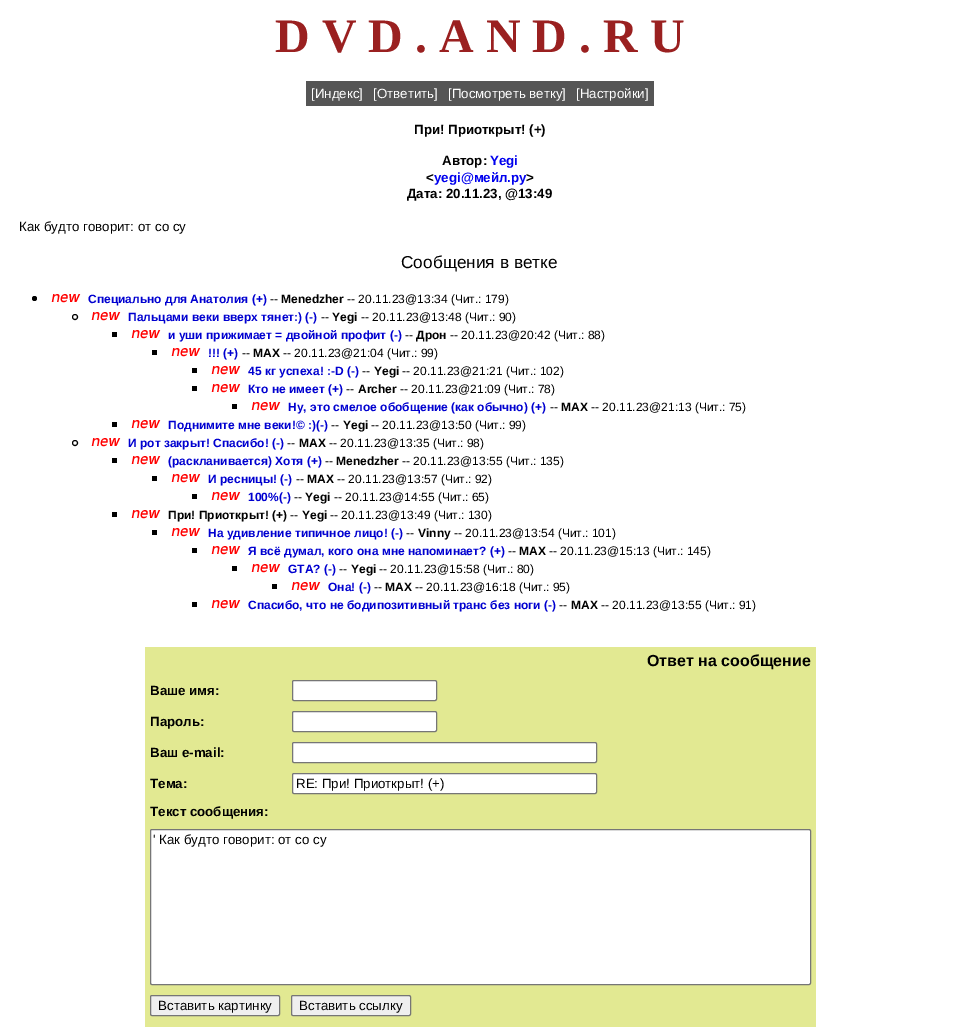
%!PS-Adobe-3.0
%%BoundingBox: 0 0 960 1027
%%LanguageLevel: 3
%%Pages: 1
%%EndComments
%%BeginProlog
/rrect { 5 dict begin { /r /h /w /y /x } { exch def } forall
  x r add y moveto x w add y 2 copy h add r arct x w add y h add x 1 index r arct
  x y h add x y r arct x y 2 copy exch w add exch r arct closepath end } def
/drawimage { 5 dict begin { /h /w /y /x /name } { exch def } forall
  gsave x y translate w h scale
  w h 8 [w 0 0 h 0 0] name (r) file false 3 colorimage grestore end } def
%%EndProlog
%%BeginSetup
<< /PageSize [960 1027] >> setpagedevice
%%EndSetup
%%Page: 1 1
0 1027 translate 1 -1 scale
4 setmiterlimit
1 setgray
0 0 960 1027 rectfill
0.333 setgray
306 81 348 25 rectfill
0 setgray
newpath 34.5 298.5 2.5 0 360 arc closepath fill
(images/1.raw) 51 294 30 9 drawimage
newpath 75 317 2.5 0 360 arc closepath stroke
(images/1.raw) 91 312 30 9 drawimage
112 332 5 5 rectfill
(images/1.raw) 131 330 30 9 drawimage
152 350 5 5 rectfill
(images/1.raw) 171 348 30 9 drawimage
192 368 5 5 rectfill
(images/1.raw) 211 366 30 9 drawimage
192 386 5 5 rectfill
(images/1.raw) 211 384 30 9 drawimage
232 404 5 5 rectfill
(images/1.raw) 251 402 30 9 drawimage
112 422 5 5 rectfill
(images/1.raw) 131 420 30 9 drawimage
newpath 75 443 2.5 0 360 arc closepath stroke
(images/1.raw) 91 438 30 9 drawimage
112 458 5 5 rectfill
(images/1.raw) 131 456 30 9 drawimage
152 476 5 5 rectfill
(images/1.raw) 171 474 30 9 drawimage
192 494 5 5 rectfill
(images/1.raw) 211 492 30 9 drawimage
112 512 5 5 rectfill
(images/1.raw) 131 510 30 9 drawimage
152 530 5 5 rectfill
(images/1.raw) 171 528 30 9 drawimage
192 548 5 5 rectfill
(images/1.raw) 211 546 30 9 drawimage
232 566 5 5 rectfill
(images/1.raw) 251 564 30 9 drawimage
272 584 5 5 rectfill
(images/1.raw) 291 582 30 9 drawimage
192 602 5 5 rectfill
(images/1.raw) 211 600 30 9 drawimage
0.886 0.914 0.573 setrgbcolor
145 647 671 28 rectfill
145 675 671 31 rectfill
1 setgray
292.5 680.5 144 20 1.5 rrect gsave fill grestore
0.463 setgray
stroke
0.886 0.914 0.573 setrgbcolor
145 706 671 31 rectfill
1 setgray
292.5 711.5 144 20 1.5 rrect gsave fill grestore
0.463 setgray
stroke
0.886 0.914 0.573 setrgbcolor
145 737 671 31 rectfill
1 setgray
292.5 742.5 304 20 1.5 rrect gsave fill grestore
0.463 setgray
stroke
0.886 0.914 0.573 setrgbcolor
145 768 671 259 rectfill
1 setgray
292.5 773.5 304 20 1.5 rrect gsave fill grestore
0.463 setgray
stroke
1 setgray
150.5 829.5 660 155 1.5 rrect gsave fill grestore
0.463 setgray
stroke
0.937 setgray
150.5 995.5 129 20 1.5 rrect gsave fill grestore
0.463 setgray
stroke
0.937 setgray
291.5 995.5 119 20 1.5 rrect gsave fill grestore
0.463 setgray
stroke
/LiberationSerif-Bold [48 0 0 -48 0 0] selectfont
0.604 0.125 0.125 setrgbcolor
275 52 moveto (D V D . A N D . R U) show
/LiberationSans-Regular [13.3 0 0 -13.3 0 0] selectfont
1 setgray
311 98 moveto ([Индекс]) show
373 98 moveto ([Ответить]) show
448 98 moveto ([Посмотреть ветку]) show
576 98 moveto ([Настройки]) show
/LiberationSans-Bold [13.3 0 0 -13.3 0 0] selectfont
0 setgray
414 134 moveto (При! Приоткрыт! \(+\)) show
442 165 moveto (Автор:) show
0 0 0.933 setrgbcolor
490 165 moveto (Yegi) show
0 setgray
426 182 moveto (<) show
0 0 0.933 setrgbcolor
434 182 moveto (yegi@мейл.ру) show
0 setgray
526 182 moveto (>) show
407 198 moveto (Дата: 20.11.23, @13:49) show
/LiberationSans-Regular [13.3 0 0 -13.3 0 0] selectfont
19 231 moveto (Как будто говорит: от со су) show
/LiberationSans-Regular [17.25 0 0 -17.25 0 0] selectfont
401 268 moveto (Сообщения в ветке) show
/LiberationSans-Bold [12 0 0 -12 0 0] selectfont
0 0 0.816 setrgbcolor
88 303 moveto (Специально для Анатолия \(+\)) show
/LiberationSans-Regular [12 0 0 -12 0 0] selectfont
0 setgray
270 303 moveto (--) show
/LiberationSans-Bold [12 0 0 -12 0 0] selectfont
281 303 moveto (Menedzher) show
/LiberationSans-Regular [12 0 0 -12 0 0] selectfont
347 303 moveto (-- 20.11.23@13:34 \(Чит.: 179\)) show
/LiberationSans-Bold [12 0 0 -12 0 0] selectfont
0 0 0.816 setrgbcolor
128 321 moveto (Пальцами веки вверх тянет:\) \(-\)) show
/LiberationSans-Regular [12 0 0 -12 0 0] selectfont
0 setgray
321 321 moveto (--) show
/LiberationSans-Bold [12 0 0 -12 0 0] selectfont
332 321 moveto (Yegi) show
/LiberationSans-Regular [12 0 0 -12 0 0] selectfont
361 321 moveto (-- 20.11.23@13:48 \(Чит.: 90\)) show
/LiberationSans-Bold [12 0 0 -12 0 0] selectfont
0 0 0.816 setrgbcolor
168 339 moveto (и уши прижимает = двойной профит \(-\)) show
/LiberationSans-Regular [12 0 0 -12 0 0] selectfont
0 setgray
405 339 moveto (--) show
/LiberationSans-Bold [12 0 0 -12 0 0] selectfont
416 339 moveto (Дрон) show
/LiberationSans-Regular [12 0 0 -12 0 0] selectfont
450 339 moveto (-- 20.11.23@20:42 \(Чит.: 88\)) show
/LiberationSans-Bold [12 0 0 -12 0 0] selectfont
0 0 0.816 setrgbcolor
208 357 moveto (!!! \(+\)) show
/LiberationSans-Regular [12 0 0 -12 0 0] selectfont
0 setgray
242 357 moveto (--) show
/LiberationSans-Bold [12 0 0 -12 0 0] selectfont
253 357 moveto (MAX) show
/LiberationSans-Regular [12 0 0 -12 0 0] selectfont
283 357 moveto (-- 20.11.23@21:04 \(Чит.: 99\)) show
/LiberationSans-Bold [12 0 0 -12 0 0] selectfont
0 0 0.816 setrgbcolor
248 375 moveto (45 кг успеха! :-D \(-\)) show
/LiberationSans-Regular [12 0 0 -12 0 0] selectfont
0 setgray
362 375 moveto (--) show
/LiberationSans-Bold [12 0 0 -12 0 0] selectfont
374 375 moveto (Yegi) show
/LiberationSans-Regular [12 0 0 -12 0 0] selectfont
402 375 moveto (-- 20.11.23@21:21 \(Чит.: 102\)) show
/LiberationSans-Bold [12 0 0 -12 0 0] selectfont
0 0 0.816 setrgbcolor
248 393 moveto (Кто не имеет \(+\)) show
/LiberationSans-Regular [12 0 0 -12 0 0] selectfont
0 setgray
346 393 moveto (--) show
/LiberationSans-Bold [12 0 0 -12 0 0] selectfont
358 393 moveto (Archer) show
/LiberationSans-Regular [12 0 0 -12 0 0] selectfont
400 393 moveto (-- 20.11.23@21:09 \(Чит.: 78\)) show
/LiberationSans-Bold [12 0 0 -12 0 0] selectfont
0 0 0.816 setrgbcolor
288 411 moveto (Ну, это смелое обобщение \(как обычно\) \(+\)) show
/LiberationSans-Regular [12 0 0 -12 0 0] selectfont
0 setgray
550 411 moveto (--) show
/LiberationSans-Bold [12 0 0 -12 0 0] selectfont
561 411 moveto (MAX) show
/LiberationSans-Regular [12 0 0 -12 0 0] selectfont
591 411 moveto (-- 20.11.23@21:13 \(Чит.: 75\)) show
/LiberationSans-Bold [12 0 0 -12 0 0] selectfont
0 0 0.816 setrgbcolor
168 429 moveto (Поднимите мне веки!© :\)\(-\)) show
/LiberationSans-Regular [12 0 0 -12 0 0] selectfont
0 setgray
331 429 moveto (--) show
/LiberationSans-Bold [12 0 0 -12 0 0] selectfont
343 429 moveto (Yegi) show
/LiberationSans-Regular [12 0 0 -12 0 0] selectfont
371 429 moveto (-- 20.11.23@13:50 \(Чит.: 99\)) show
/LiberationSans-Bold [12 0 0 -12 0 0] selectfont
0 0 0.816 setrgbcolor
128 447 moveto (И рот закрыт! Спасибо! \(-\)) show
/LiberationSans-Regular [12 0 0 -12 0 0] selectfont
0 setgray
287 447 moveto (--) show
/LiberationSans-Bold [12 0 0 -12 0 0] selectfont
299 447 moveto (MAX) show
/LiberationSans-Regular [12 0 0 -12 0 0] selectfont
329 447 moveto (-- 20.11.23@13:35 \(Чит.: 98\)) show
/LiberationSans-Bold [12 0 0 -12 0 0] selectfont
0 0 0.816 setrgbcolor
168 465 moveto (\(раскланивается\) Хотя \(+\)) show
/LiberationSans-Regular [12 0 0 -12 0 0] selectfont
0 setgray
325 465 moveto (--) show
/LiberationSans-Bold [12 0 0 -12 0 0] selectfont
336 465 moveto (Menedzher) show
/LiberationSans-Regular [12 0 0 -12 0 0] selectfont
402 465 moveto (-- 20.11.23@13:55 \(Чит.: 135\)) show
/LiberationSans-Bold [12 0 0 -12 0 0] selectfont
0 0 0.816 setrgbcolor
208 483 moveto (И ресницы! \(-\)) show
/LiberationSans-Regular [12 0 0 -12 0 0] selectfont
0 setgray
296 483 moveto (--) show
/LiberationSans-Bold [12 0 0 -12 0 0] selectfont
307 483 moveto (MAX) show
/LiberationSans-Regular [12 0 0 -12 0 0] selectfont
337 483 moveto (-- 20.11.23@13:57 \(Чит.: 92\)) show
/LiberationSans-Bold [12 0 0 -12 0 0] selectfont
0 0 0.816 setrgbcolor
248 501 moveto (100%\(-\)) show
/LiberationSans-Regular [12 0 0 -12 0 0] selectfont
0 setgray
294 501 moveto (--) show
/LiberationSans-Bold [12 0 0 -12 0 0] selectfont
305 501 moveto (Yegi) show
/LiberationSans-Regular [12 0 0 -12 0 0] selectfont
334 501 moveto (-- 20.11.23@14:55 \(Чит.: 65\)) show
/LiberationSans-Bold [12 0 0 -12 0 0] selectfont
168 519 moveto (При! Приоткрыт! \(+\)) show
/LiberationSans-Regular [12 0 0 -12 0 0] selectfont
290 519 moveto (--) show
/LiberationSans-Bold [12 0 0 -12 0 0] selectfont
302 519 moveto (Yegi) show
/LiberationSans-Regular [12 0 0 -12 0 0] selectfont
330 519 moveto (-- 20.11.23@13:49 \(Чит.: 130\)) show
/LiberationSans-Bold [12 0 0 -12 0 0] selectfont
0 0 0.816 setrgbcolor
208 537 moveto (На удивление типичное лицо! \(-\)) show
/LiberationSans-Regular [12 0 0 -12 0 0] selectfont
0 setgray
406 537 moveto (--) show
/LiberationSans-Bold [12 0 0 -12 0 0] selectfont
418 537 moveto (Vinny) show
/LiberationSans-Regular [12 0 0 -12 0 0] selectfont
454 537 moveto (-- 20.11.23@13:54 \(Чит.: 101\)) show
/LiberationSans-Bold [12 0 0 -12 0 0] selectfont
0 0 0.816 setrgbcolor
248 555 moveto (Я всё думал, кого она мне напоминает? \(+\)) show
/LiberationSans-Regular [12 0 0 -12 0 0] selectfont
0 setgray
508 555 moveto (--) show
/LiberationSans-Bold [12 0 0 -12 0 0] selectfont
519 555 moveto (MAX) show
/LiberationSans-Regular [12 0 0 -12 0 0] selectfont
549 555 moveto (-- 20.11.23@15:13 \(Чит.: 145\)) show
/LiberationSans-Bold [12 0 0 -12 0 0] selectfont
0 0 0.816 setrgbcolor
288 573 moveto (GTA? \(-\)) show
/LiberationSans-Regular [12 0 0 -12 0 0] selectfont
0 setgray
339 573 moveto (--) show
/LiberationSans-Bold [12 0 0 -12 0 0] selectfont
351 573 moveto (Yegi) show
/LiberationSans-Regular [12 0 0 -12 0 0] selectfont
379 573 moveto (-- 20.11.23@15:58 \(Чит.: 80\)) show
/LiberationSans-Bold [12 0 0 -12 0 0] selectfont
0 0 0.816 setrgbcolor
328 591 moveto (Она! \(-\)) show
/LiberationSans-Regular [12 0 0 -12 0 0] selectfont
0 setgray
374 591 moveto (--) show
/LiberationSans-Bold [12 0 0 -12 0 0] selectfont
385 591 moveto (MAX) show
/LiberationSans-Regular [12 0 0 -12 0 0] selectfont
415 591 moveto (-- 20.11.23@16:18 \(Чит.: 95\)) show
/LiberationSans-Bold [12 0 0 -12 0 0] selectfont
0 0 0.816 setrgbcolor
248 609 moveto (Спасибо, что не бодипозитивный транс без ноги \(-\)) show
/LiberationSans-Regular [12 0 0 -12 0 0] selectfont
0 setgray
559 609 moveto (--) show
/LiberationSans-Bold [12 0 0 -12 0 0] selectfont
571 609 moveto (MAX) show
/LiberationSans-Regular [12 0 0 -12 0 0] selectfont
601 609 moveto (-- 20.11.23@13:55 \(Чит.: 91\)) show
/LiberationSans-Bold [16 0 0 -16 0 0] selectfont
647 666 moveto (Ответ на сообщение) show
/LiberationSans-Bold [13.3 0 0 -13.3 0 0] selectfont
150 695 moveto (Ваше имя:) show
150 726 moveto (Пароль:) show
150 757 moveto (Ваш e-mail:) show
150 788 moveto (Тема:) show
/LiberationSans-Regular [13.3 0 0 -13.3 0 0] selectfont
296 788 moveto (RE: При! Приоткрыт! \(+\)) show
/LiberationSans-Bold [13.3 0 0 -13.3 0 0] selectfont
150 816 moveto (Текст сообщения:) show
/LiberationSans-Regular [13.3 0 0 -13.3 0 0] selectfont
153 844 moveto (' Как будто говорит: от со су) show
158 1010 moveto (Вставить картинку) show
299 1010 moveto (Вставить ссылку) show
showpage
%%EOF
